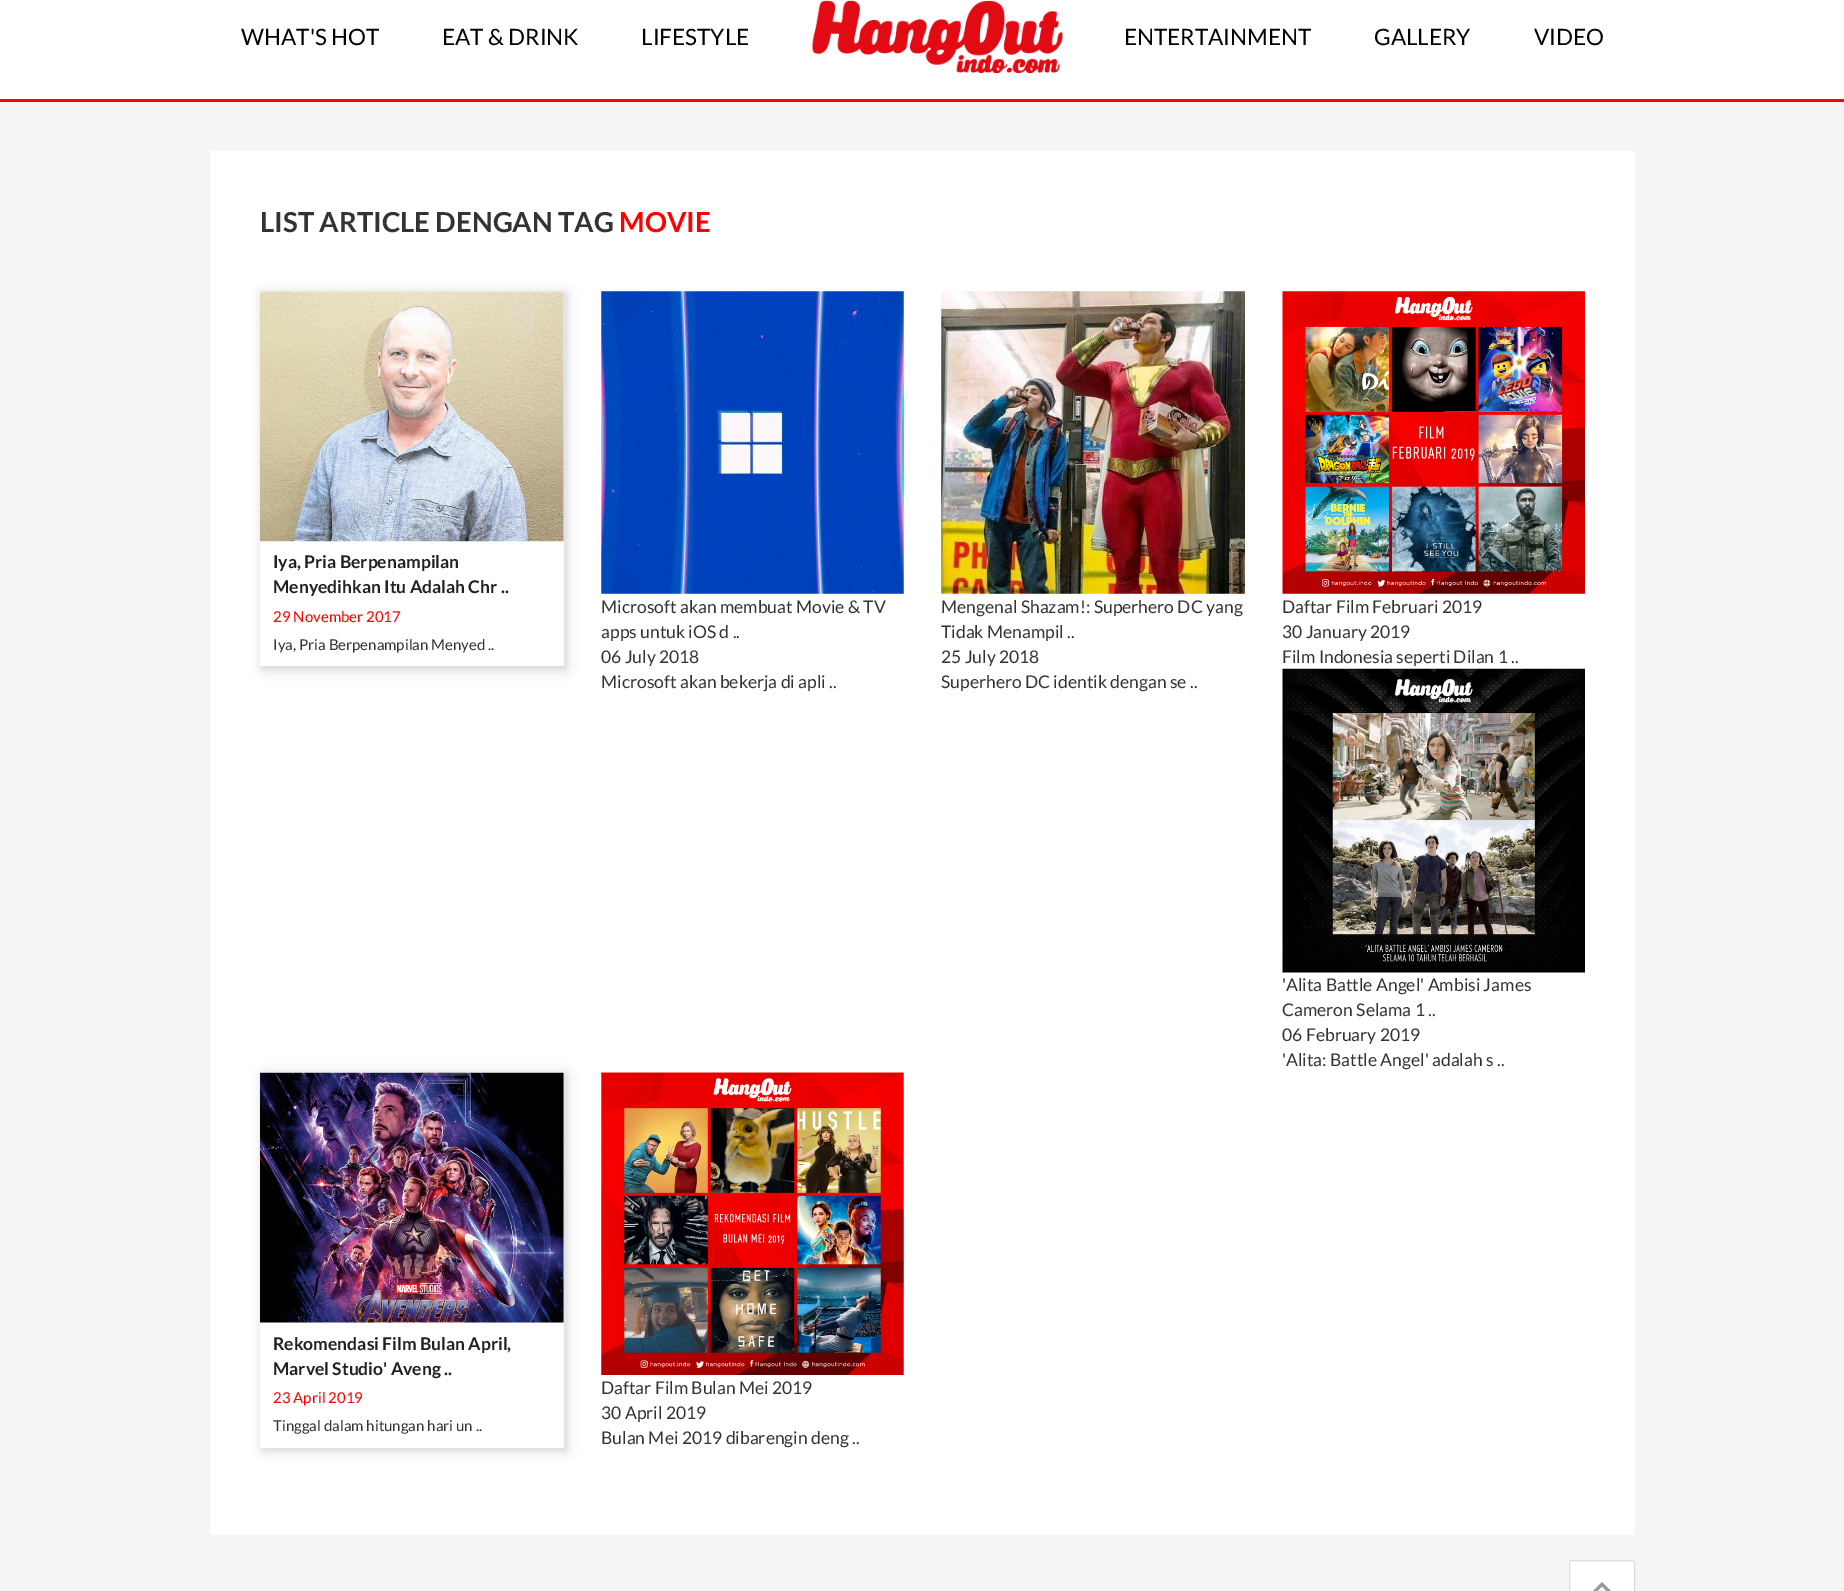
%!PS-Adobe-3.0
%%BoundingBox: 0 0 1844 1591
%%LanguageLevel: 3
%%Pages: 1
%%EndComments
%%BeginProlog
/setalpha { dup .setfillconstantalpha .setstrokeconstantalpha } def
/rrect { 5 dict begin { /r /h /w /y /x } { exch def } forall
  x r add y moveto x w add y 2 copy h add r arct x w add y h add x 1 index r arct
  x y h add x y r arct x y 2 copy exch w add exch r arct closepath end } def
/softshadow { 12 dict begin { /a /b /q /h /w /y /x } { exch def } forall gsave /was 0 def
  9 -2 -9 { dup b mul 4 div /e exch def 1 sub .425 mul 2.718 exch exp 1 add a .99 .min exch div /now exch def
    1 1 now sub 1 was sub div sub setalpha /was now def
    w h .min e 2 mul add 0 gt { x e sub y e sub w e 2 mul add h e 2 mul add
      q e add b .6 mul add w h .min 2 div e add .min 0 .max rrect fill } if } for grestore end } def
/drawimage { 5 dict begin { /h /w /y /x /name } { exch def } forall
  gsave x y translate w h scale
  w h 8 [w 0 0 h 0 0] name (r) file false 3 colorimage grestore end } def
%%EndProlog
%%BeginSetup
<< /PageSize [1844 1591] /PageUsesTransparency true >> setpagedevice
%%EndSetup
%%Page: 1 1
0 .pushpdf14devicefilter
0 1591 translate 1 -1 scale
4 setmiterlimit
0.961 setgray
0 0 1844 1591 rectfill
1 setgray
0 0 1844 99 rectfill
1 0 0 setrgbcolor
0 99 1844 3 rectfill
(images/1.raw) 812 0 251 74 drawimage
1 setgray
210 151 1425 1384 rectfill
0 setgray
263 294 303 375 0 6 0.2 softshadow
1 setgray
260 291 304 375 rectfill
(images/2.raw) 260 291 304 251 drawimage
(images/3.raw) 601 291 303 303 drawimage
(images/4.raw) 941 291 304 303 drawimage
(images/5.raw) 1282 291 303 303 drawimage
(images/6.raw) 1282 668 303 305 drawimage
0 setgray
263 1075 303 375 0 6 0.2 softshadow
1 setgray
260 1073 304 375 rectfill
(images/7.raw) 260 1072 304 251 drawimage
(images/8.raw) 601 1072 303 303 drawimage
1569.5 1560.5 65 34 2 rrect gsave fill grestore
0.867 setgray
stroke
(images/9.raw) 1593 1582 18 9 drawimage
/Lato-Regular [22.5 0 0 -22.5 0 0] selectfont
0 setgray
241 45 moveto (WHAT'S HOT) show
442 45 moveto (EAT & DRINK) show
641 45 moveto (LIFESTYLE) show
1124 45 moveto (ENTERTAINMENT) show
1374 45 moveto (GALLERY) show
1534 45 moveto (VIDEO) show
/Lato-Bold [27.5 0 0 -27.5 0 0] selectfont
0.2 setgray
260 232 moveto (LIST ARTICLE DENGAN TAG) show
1 0 0 setrgbcolor
619 232 moveto (MOVIE) show
/Lato-Bold [17.5 0 0 -17.5 0 0] selectfont
0.129 setgray
273 568 moveto (Iya, Pria Berpenampilan) show
273 593 moveto (Menyedihkan Itu Adalah Chr ..) show
/Lato-Regular [15 0 0 -15 0 0] selectfont
1 0 0 setrgbcolor
273 622 moveto (29 November 2017) show
0.2 setgray
273 650 moveto (Iya, Pria Berpenampilan Menyed ..) show
/Lato-Regular [17.5 0 0 -17.5 0 0] selectfont
601 613 moveto (Microsoft akan membuat Movie & TV) show
601 638 moveto (apps untuk iOS d ..) show
601 663 moveto (06 July 2018) show
601 688 moveto (Microsoft akan bekerja di apli ..) show
941 613 moveto (Mengenal Shazam!: Superhero DC yang) show
941 638 moveto (Tidak Menampil ..) show
941 663 moveto (25 July 2018) show
941 688 moveto (Superhero DC identik dengan se ..) show
1282 613 moveto (Daftar Film Februari 2019) show
1282 638 moveto (30 January 2019) show
1282 663 moveto (Film Indonesia seperti Dilan 1 ..) show
1282 991 moveto ('Alita Battle Angel' Ambisi James) show
1282 1016 moveto (Cameron Selama 1 ..) show
1282 1041 moveto (06 February 2019) show
1282 1066 moveto ('Alita: Battle Angel' adalah s ..) show
/Lato-Bold [17.5 0 0 -17.5 0 0] selectfont
0.129 setgray
273 1350 moveto (Rekomendasi Film Bulan April,) show
273 1375 moveto (Marvel Studio' Aveng ..) show
/Lato-Regular [15 0 0 -15 0 0] selectfont
1 0 0 setrgbcolor
273 1403 moveto (23 April 2019) show
0.2 setgray
273 1431 moveto (Tinggal dalam hitungan hari un ..) show
/Lato-Regular [17.5 0 0 -17.5 0 0] selectfont
601 1394 moveto (Daftar Film Bulan Mei 2019) show
601 1419 moveto (30 April 2019) show
601 1444 moveto (Bulan Mei 2019 dibarengin deng ..) show
.poppdf14devicefilter showpage
%%EOF
